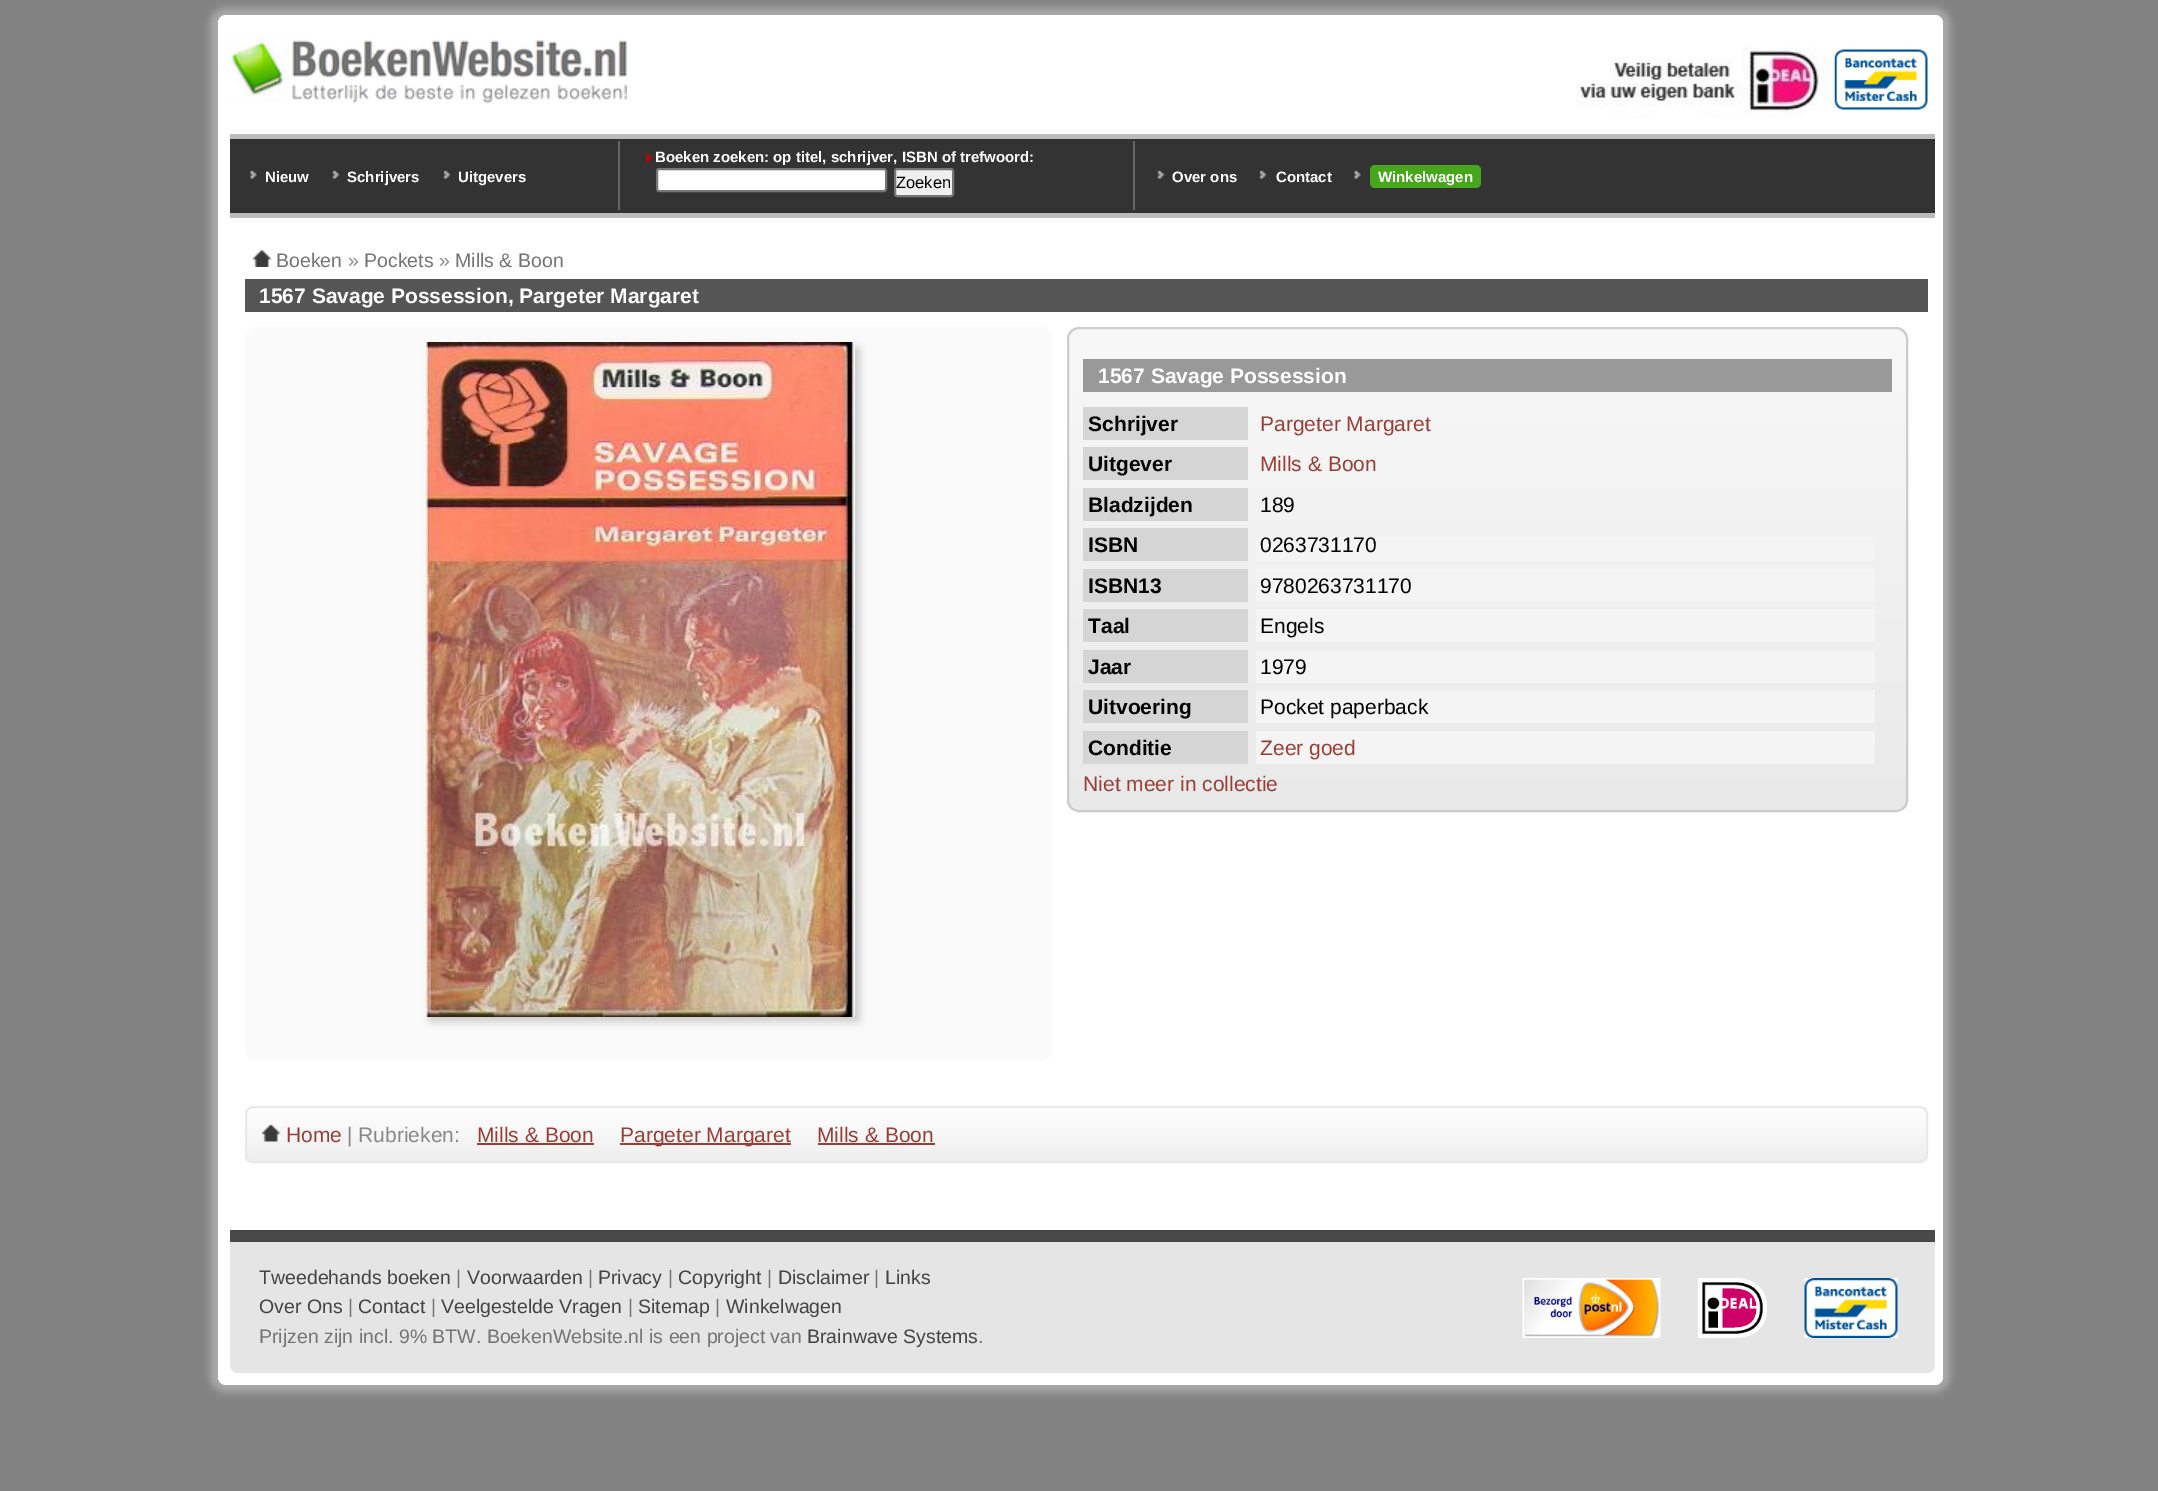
%!PS-Adobe-3.0
%%BoundingBox: 0 0 2158 1491
%%LanguageLevel: 3
%%Pages: 1
%%EndComments
%%BeginProlog
/setalpha { dup .setfillconstantalpha .setstrokeconstantalpha } def
/rrect { 5 dict begin { /r /h /w /y /x } { exch def } forall
  x r add y moveto x w add y 2 copy h add r arct x w add y h add x 1 index r arct
  x y h add x y r arct x y 2 copy exch w add exch r arct closepath end } def
/softshadow { 12 dict begin { /a /b /q /h /w /y /x } { exch def } forall gsave /was 0 def
  9 -2 -9 { dup b mul 4 div /e exch def 1 sub .425 mul 2.718 exch exp 1 add a .99 .min exch div /now exch def
    1 1 now sub 1 was sub div sub setalpha /was now def
    w h .min e 2 mul add 0 gt { x e sub y e sub w e 2 mul add h e 2 mul add
      q e add b .6 mul add w h .min 2 div e add .min 0 .max rrect fill } if } for grestore end } def
/drawimage { 5 dict begin { /h /w /y /x /name } { exch def } forall
  gsave x y translate w h scale
  w h 8 [w 0 0 h 0 0] name (r) file false 3 colorimage grestore end } def
%%EndProlog
%%BeginSetup
<< /PageSize [2158 1491] /PageUsesTransparency true >> setpagedevice
%%EndSetup
%%Page: 1 1
0 .pushpdf14devicefilter
0 1491 translate 1 -1 scale
4 setmiterlimit
0.51 setgray
0 0 2158 1491 rectfill
0.667 setgray
210 8 1740 1384 15 4 1 softshadow
1 setgray
218 15 1725 1370 8 rrect fill
(images/1.raw) 229 35 398 69 drawimage
(images/3.raw) 1834 49 94 61 drawimage
(images/2.raw) 1576 47 259 71 drawimage
0.2 setgray
230 139 1705 74 rectfill
0.733 setgray
230 134 1705 5 rectfill
230 213 1705 5 rectfill
0.4 setgray
618 141 2 69 rectfill
(images/4.raw) 250 170 8 10 drawimage
(images/5.raw) 332 170 10 10 drawimage
(images/5.raw) 443 170 10 10 drawimage
1133 141 2 69 rectfill
(images/6.raw) 640 151 14 13 drawimage
1 setgray
657 169 229 22 2 rrect gsave fill grestore
0.463 setgray
2 setlinewidth
stroke
0.937 setgray
895 169 58 27 2 rrect gsave fill grestore
0.463 setgray
stroke
(images/5.raw) 1157 170 10 10 drawimage
(images/5.raw) 1259 170 10 10 drawimage
(images/7.raw) 1354 170 8 10 drawimage
0.278 0.655 0.11 setrgbcolor
1370 165 111 23 5 rrect fill
(images/8.raw) 252 249 20 18 drawimage
0.333 setgray
245 279 1683 33 rectfill
0.98 setgray
245 327 807 734 12 rrect fill
0.8 setgray
429 347 431 675 3 4 1 softshadow
(images/9.raw) 424 342 431 675 drawimage
gsave
1067 327 841 485 12 rrect clip newpath
gsave newpath 1067 329 moveto 1908 329 lineto 1908 810 lineto 1067 810 lineto closepath clip newpath
<< /ShadingType 2 /ColorSpace /DeviceRGB /Coords [1068 329 1068 810] /Extend [true true] /Function << /FunctionType 2 /Domain [0 1] /C0 [0.973 0.973 0.973] /C1 [0.914 0.914 0.914] /N 1 >> >> shfill grestore
grestore
1068 328 839 483 11 rrect stroke
0.6 setgray
1083 359 809 33 rectfill
0.835 setgray
1083 407 165 33 rectfill
1083 447 165 33 rectfill
1083 488 165 33 rectfill
1083 528 165 33 rectfill
0.957 setgray
1256 537 619 24 rectfill
0.835 setgray
1083 569 165 33 rectfill
0.957 setgray
1256 569 619 33 rectfill
0.835 setgray
1083 609 165 33 rectfill
0.957 setgray
1256 609 619 33 rectfill
0.835 setgray
1083 650 165 33 rectfill
0.957 setgray
1256 650 619 33 rectfill
0.835 setgray
1083 690 165 33 rectfill
0.957 setgray
1256 690 619 33 rectfill
0.835 setgray
1083 731 165 33 rectfill
0.957 setgray
1256 731 619 33 rectfill
gsave
245 1106 1683 57 8 rrect clip newpath
gsave newpath 245 1107 moveto 1928 1107 lineto 1928 1161 lineto 245 1161 lineto closepath clip newpath
<< /ShadingType 2 /ColorSpace /DeviceRGB /Coords [246 1107 246 1161] /Extend [true true] /Function << /FunctionType 2 /Domain [0 1] /C0 [1 1 1] /C1 [0.933 0.933 0.933] /N 1 >> >> shfill grestore
grestore
0.914 setgray
246 1107 1681 55 7 rrect stroke
(images/10.raw) 261 1124 20 18 drawimage
0.596 0.243 0.208 setrgbcolor
477 1143 117 2 rectfill
620 1143 171 2 rectfill
818 1143 117 2 rectfill
0.898 setgray
newpath 230 1230 moveto 1935 1230 lineto 1935 1365 lineto 1935 1369.5 1931.5 1373 1927 1373 curveto 238 1373 lineto 233.5 1373 230 1369.5 230 1365 curveto closepath fill
0.286 setgray
230 1230 1705 12 rectfill
(images/11.raw) 1522 1278 139 60 drawimage
(images/12.raw) 1698 1278 69 60 drawimage
(images/13.raw) 1804 1278 94 60 drawimage
/LiberationSans-Bold [15 0 0 -15 0 0] selectfont
1 setgray
265 182 moveto (Nieuw) show
347 182 moveto (Schrijvers) show
458 182 moveto (Uitgevers) show
655 162 moveto (Boeken zoeken: op titel, schrijver, ISBN of trefwoord:) show
/LiberationSans-Regular [16.5 0 0 -16.5 0 0] selectfont
0 setgray
896 188 moveto (Zoeken) show
/LiberationSans-Bold [15 0 0 -15 0 0] selectfont
1 setgray
1172 182 moveto (Over ons) show
1276 182 moveto (Contact) show
1378 182 moveto (Winkelwagen) show
/LiberationSans-Regular [19.5 0 0 -19.5 0 0] selectfont
0.455 setgray
276 267 moveto (Boeken) show
0.533 setgray
348 267 moveto (») show
0.455 setgray
364 267 moveto (Pockets) show
0.533 setgray
439 267 moveto (») show
0.455 setgray
455 267 moveto (Mills & Boon) show
/LiberationSans-Bold [21 0 0 -21 0 0] selectfont
1 setgray
259 303 moveto (1567 Savage Possession, Pargeter Margaret) show
1098 383 moveto (1567 Savage Possession) show
0 setgray
1088 431 moveto (Schrijver) show
/LiberationSans-Regular [21 0 0 -21 0 0] selectfont
0.596 0.243 0.208 setrgbcolor
1260 431 moveto (Pargeter Margaret) show
/LiberationSans-Bold [21 0 0 -21 0 0] selectfont
0 setgray
1088 471 moveto (Uitgever) show
/LiberationSans-Regular [21 0 0 -21 0 0] selectfont
0.596 0.243 0.208 setrgbcolor
1260 471 moveto (Mills & Boon) show
/LiberationSans-Bold [21 0 0 -21 0 0] selectfont
0 setgray
1088 512 moveto (Bladzijden) show
/LiberationSans-Regular [21 0 0 -21 0 0] selectfont
1260 512 moveto (189) show
/LiberationSans-Bold [21 0 0 -21 0 0] selectfont
1088 552 moveto (ISBN) show
/LiberationSans-Regular [21 0 0 -21 0 0] selectfont
1260 552 moveto (0263731170) show
/LiberationSans-Bold [21 0 0 -21 0 0] selectfont
1088 593 moveto (ISBN13) show
/LiberationSans-Regular [21 0 0 -21 0 0] selectfont
1260 593 moveto (9780263731170) show
/LiberationSans-Bold [21 0 0 -21 0 0] selectfont
1088 633 moveto (Taal) show
/LiberationSans-Regular [21 0 0 -21 0 0] selectfont
1260 633 moveto (Engels) show
/LiberationSans-Bold [21 0 0 -21 0 0] selectfont
1088 674 moveto (Jaar) show
/LiberationSans-Regular [21 0 0 -21 0 0] selectfont
1260 674 moveto (1979) show
/LiberationSans-Bold [21 0 0 -21 0 0] selectfont
1088 714 moveto (Uitvoering) show
/LiberationSans-Regular [21 0 0 -21 0 0] selectfont
1260 714 moveto (Pocket paperback) show
/LiberationSans-Bold [21 0 0 -21 0 0] selectfont
1088 755 moveto (Conditie) show
/LiberationSans-Regular [21 0 0 -21 0 0] selectfont
0.596 0.243 0.208 setrgbcolor
1260 755 moveto (Zeer goed) show
1083 791 moveto (Niet meer in collectie) show
286 1142 moveto (Home) show
0.533 setgray
347 1142 moveto (| Rubrieken:) show
0.596 0.243 0.208 setrgbcolor
477 1142 moveto (Mills & Boon) show
620 1142 moveto (Pargeter Margaret) show
817 1142 moveto (Mills & Boon) show
/LiberationSans-Regular [19.5 0 0 -19.5 0 0] selectfont
0.267 setgray
259 1284 moveto (Tweedehands boeken) show
0.455 setgray
456 1284 moveto (|) show
0.267 setgray
467 1284 moveto (Voorwaarden) show
0.455 setgray
588 1284 moveto (|) show
0.267 setgray
598 1284 moveto (Privacy) show
0.455 setgray
668 1284 moveto (|) show
0.267 setgray
678 1284 moveto (Copyright) show
0.455 setgray
767 1284 moveto (|) show
0.267 setgray
778 1284 moveto (Disclaimer) show
0.455 setgray
874 1284 moveto (|) show
0.267 setgray
885 1284 moveto (Links) show
259 1313 moveto (Over Ons) show
0.455 setgray
348 1313 moveto (|) show
0.267 setgray
358 1313 moveto (Contact) show
0.455 setgray
431 1313 moveto (|) show
0.267 setgray
441 1313 moveto (Veelgestelde Vragen) show
0.455 setgray
628 1313 moveto (|) show
0.267 setgray
638 1313 moveto (Sitemap) show
0.455 setgray
715 1313 moveto (|) show
0.267 setgray
726 1313 moveto (Winkelwagen) show
0.455 setgray
259 1343 moveto (Prijzen zijn incl. 9% BTW. BoekenWebsite.nl is een project van) show
0.267 setgray
807 1343 moveto (Brainwave Systems) show
0.455 setgray
978 1343 moveto (.) show
.poppdf14devicefilter showpage
%%EOF
